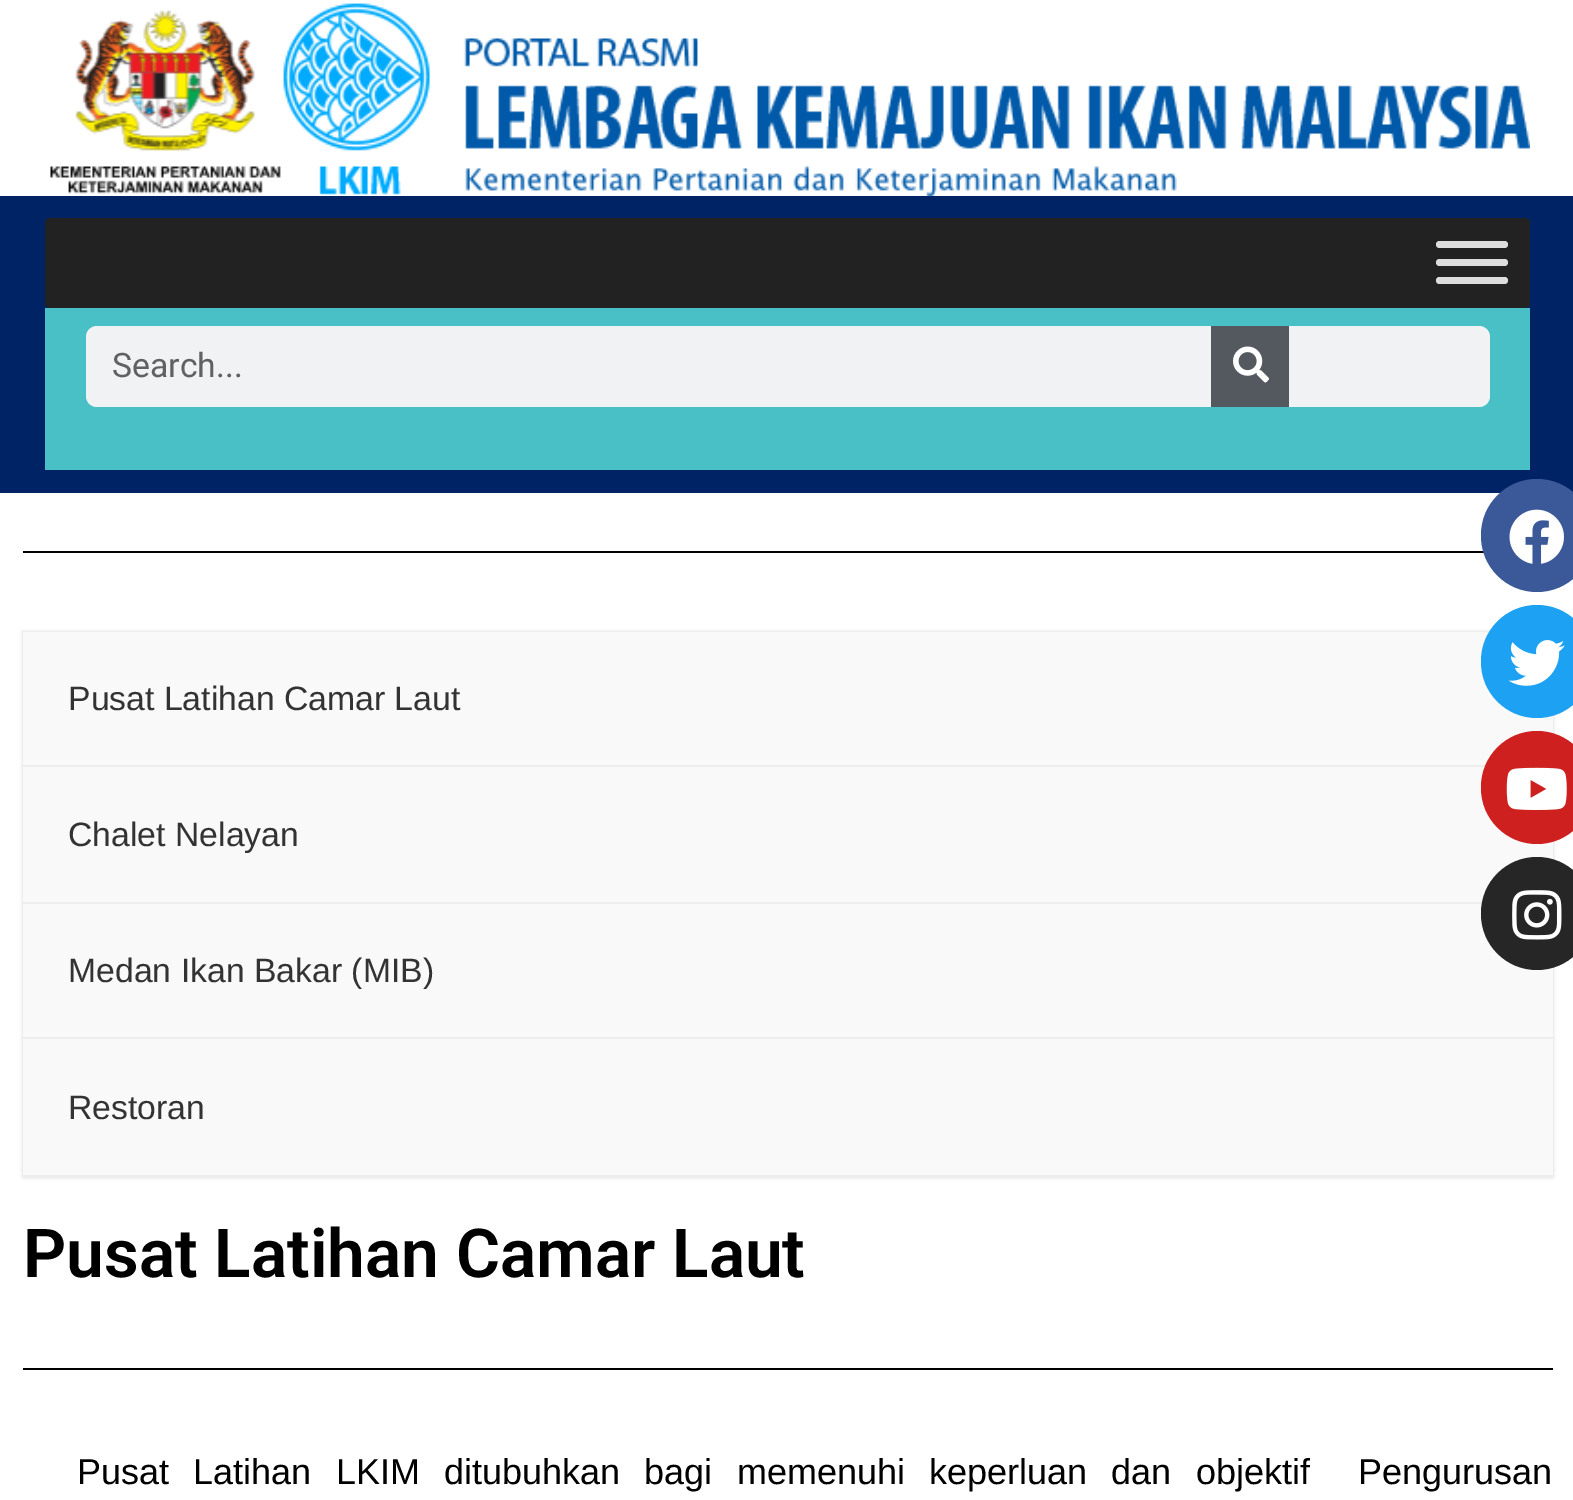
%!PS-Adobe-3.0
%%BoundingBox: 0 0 1573 1500
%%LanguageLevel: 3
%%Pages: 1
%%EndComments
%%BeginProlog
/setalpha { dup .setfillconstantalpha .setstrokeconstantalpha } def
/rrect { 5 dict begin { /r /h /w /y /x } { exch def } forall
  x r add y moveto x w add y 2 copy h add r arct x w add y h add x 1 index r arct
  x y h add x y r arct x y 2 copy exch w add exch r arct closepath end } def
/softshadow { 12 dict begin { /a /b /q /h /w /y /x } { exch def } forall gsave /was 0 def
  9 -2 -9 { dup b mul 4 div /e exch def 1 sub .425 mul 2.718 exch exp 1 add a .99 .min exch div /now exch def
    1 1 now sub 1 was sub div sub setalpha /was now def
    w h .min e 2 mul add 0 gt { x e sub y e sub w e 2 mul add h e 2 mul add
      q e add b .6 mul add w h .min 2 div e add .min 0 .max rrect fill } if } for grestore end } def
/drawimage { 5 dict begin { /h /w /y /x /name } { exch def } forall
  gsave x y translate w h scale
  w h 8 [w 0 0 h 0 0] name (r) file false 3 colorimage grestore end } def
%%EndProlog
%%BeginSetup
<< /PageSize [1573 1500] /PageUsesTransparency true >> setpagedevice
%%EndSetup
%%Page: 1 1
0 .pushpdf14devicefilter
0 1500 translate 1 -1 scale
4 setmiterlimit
1 setgray
0 0 1573 1500 rectfill
(images/1.raw) 50 3 1480 193 drawimage
0 0.137 0.396 setrgbcolor
0 196 1573 297 rectfill
0.133 setgray
45 218 1485 90 5 rrect fill
0.867 setgray
1436 241 72 7 3.5 rrect fill
1436 259 72 7 3.5 rrect fill
1436 277 72 7 3.5 rrect fill
0.286 0.753 0.776 setrgbcolor
45 308 1485 162 rectfill
0.945 0.949 0.953 setrgbcolor
86 326 1404 81 11 rrect fill
0.329 0.349 0.373 setrgbcolor
1211 326 78 81 rectfill
(images/2.raw) 1233 346 36 37 drawimage
0 setgray
23 551 1461 2 rectfill
0.231 0.349 0.596 setrgbcolor
1481 479 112 113 56 rrect fill
(images/3.raw) 1509 509 55 55 drawimage
0 setgray
23 632 1530 545 0 2 0.17 softshadow
0.976 setgray
23 632 1530 543 rectfill
0.114 0.631 0.949 setrgbcolor
1481 605 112 113 56 rrect fill
(images/4.raw) 1508 640 57 46 drawimage
0.929 setgray
23 765 1463 2 rectfill
0.804 0.125 0.122 setrgbcolor
1481 731 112 113 56 rrect fill
(images/5.raw) 1506 767 61 43 drawimage
0.929 setgray
23 902 1460 2 rectfill
0.149 setgray
1481 857 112 113 56 rrect fill
(images/6.raw) 1512 890 50 50 drawimage
0.929 setgray
23 1037 1530 2 rectfill
23 1175 1530 2 rectfill
0 setgray
23 1368 1530 2 rectfill
/Roboto-Regular [33.75 0 0 -33.75 0 0] selectfont
0.376 0.38 0.38 setrgbcolor
112 377 moveto (Search...) show
/LiberationSans-Regular [33.75 0 0 -33.75 0 0] selectfont
0.2 setgray
68 710 moveto (Pusat Latihan Camar Laut) show
68 846 moveto (Chalet Nelayan) show
68 982 moveto (Medan Ikan Bakar \(MIB\)) show
68 1119 moveto (Restoran) show
/Roboto-SemiBold [67.5 0 0 -67.5 0 0] selectfont
0 setgray
23 1277 moveto (Pusat Latihan Camar Laut) show
/LiberationSans-Regular [36 0 0 -36 0 0] selectfont
77 1484 moveto 14.25 0 32 (Pusat Latihan LKIM ditubuhkan bagi memenuhi keperluan dan objektif  Pengurusan) widthshow
.poppdf14devicefilter showpage
%%EOF
